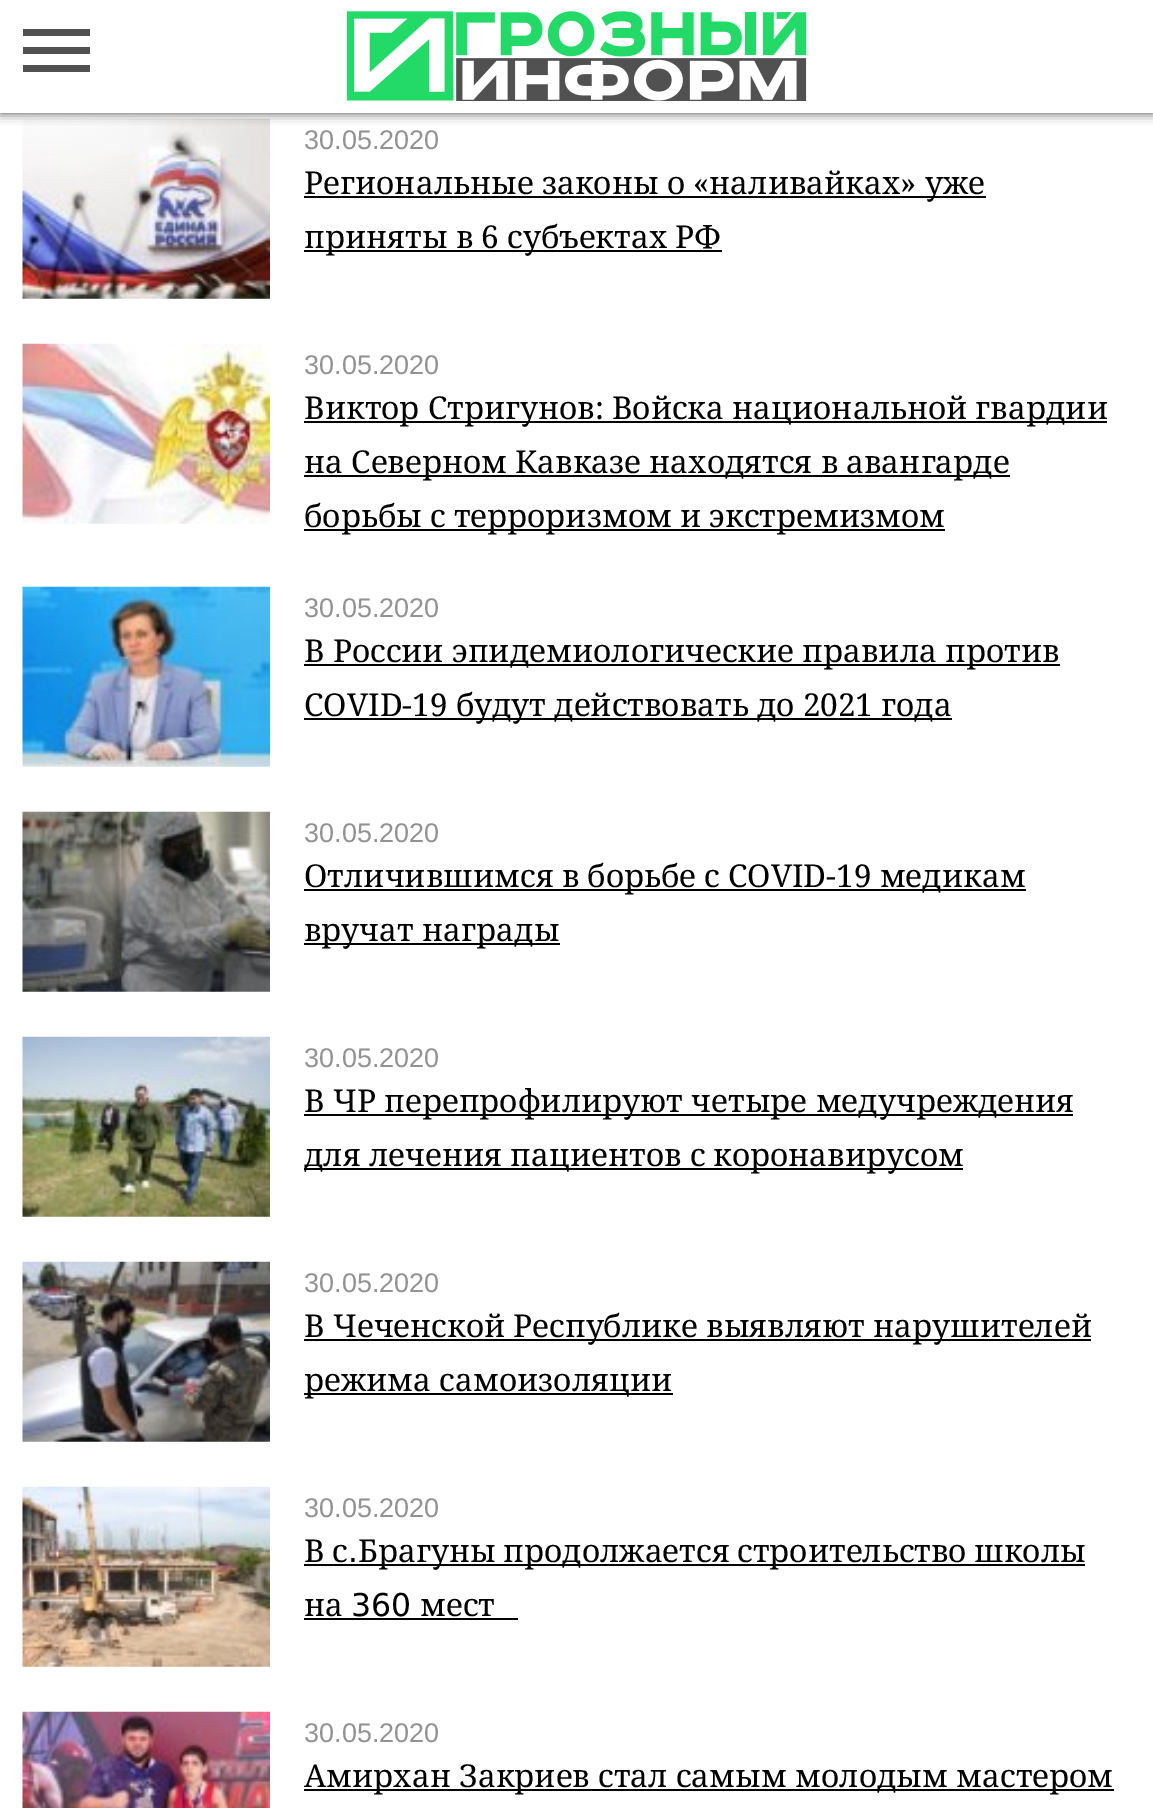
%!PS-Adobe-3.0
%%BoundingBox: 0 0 1153 1808
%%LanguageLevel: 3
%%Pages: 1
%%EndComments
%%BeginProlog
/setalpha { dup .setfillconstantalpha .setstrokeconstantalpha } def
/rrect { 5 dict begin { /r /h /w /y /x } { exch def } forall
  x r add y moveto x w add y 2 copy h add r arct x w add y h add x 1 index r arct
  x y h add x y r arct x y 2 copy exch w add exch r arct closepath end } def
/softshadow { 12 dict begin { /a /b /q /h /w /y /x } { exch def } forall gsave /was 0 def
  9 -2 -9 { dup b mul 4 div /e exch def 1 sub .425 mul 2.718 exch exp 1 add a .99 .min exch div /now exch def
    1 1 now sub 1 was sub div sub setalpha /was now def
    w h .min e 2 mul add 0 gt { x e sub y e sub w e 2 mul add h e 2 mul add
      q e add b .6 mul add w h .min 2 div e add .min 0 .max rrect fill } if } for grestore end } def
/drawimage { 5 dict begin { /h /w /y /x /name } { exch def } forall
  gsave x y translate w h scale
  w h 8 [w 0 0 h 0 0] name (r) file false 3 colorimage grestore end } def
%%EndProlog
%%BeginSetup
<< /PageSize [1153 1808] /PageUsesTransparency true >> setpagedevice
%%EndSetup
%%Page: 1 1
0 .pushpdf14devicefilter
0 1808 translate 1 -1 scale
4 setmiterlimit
1 setgray
0 0 1153 1808 rectfill
(images/2.raw) 22 118 248 181 drawimage
0 setgray
0 0 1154 113 0 5.5 0.7 softshadow
1 setgray
0 0 1153 113 rectfill
0.318 setgray
23 47 67 7 rectfill
23 29 67 7 rectfill
23 65 67 7 rectfill
(images/1.raw) 347 11 460 90 drawimage
0 setgray
304 196 682 2 rectfill
304 250 418 2 rectfill
(images/3.raw) 22 343 248 181 drawimage
304 421 803 2 rectfill
304 475 706 2 rectfill
304 529 641 2 rectfill
(images/4.raw) 22 586 248 181 drawimage
304 664 756 2 rectfill
304 718 648 2 rectfill
(images/5.raw) 22 811 248 181 drawimage
304 889 722 2 rectfill
304 943 256 2 rectfill
(images/6.raw) 22 1036 248 181 drawimage
304 1114 769 2 rectfill
304 1168 659 2 rectfill
(images/7.raw) 22 1261 248 181 drawimage
304 1339 787 2 rectfill
304 1393 369 2 rectfill
(images/8.raw) 22 1486 248 181 drawimage
304 1564 781 2 rectfill
304 1618 214 2 rectfill
(images/9.raw) 22 1711 248 97 drawimage
304 1789 810 2 rectfill
/LiberationSans-Regular [27 0 0 -27 0 0] selectfont
0.576 0.569 0.573 setrgbcolor
304 149 moveto (30.05.2020) show
/NotoSerif-Regular [31.5 0 0 -31.5 0 0] selectfont
0 setgray
304 194 moveto (Региональные законы о «наливайках» уже) show
304 248 moveto (приняты в 6 субъектах РФ) show
/LiberationSans-Regular [27 0 0 -27 0 0] selectfont
0.576 0.569 0.573 setrgbcolor
304 374 moveto (30.05.2020) show
/NotoSerif-Regular [31.5 0 0 -31.5 0 0] selectfont
0 setgray
304 419 moveto (Виктор Стригунов: Войска национальной гвардии) show
304 473 moveto (на Северном Кавказе находятся в авангарде) show
304 527 moveto (борьбы с терроризмом и экстремизмом) show
/LiberationSans-Regular [27 0 0 -27 0 0] selectfont
0.576 0.569 0.573 setrgbcolor
304 617 moveto (30.05.2020) show
/NotoSerif-Regular [31.5 0 0 -31.5 0 0] selectfont
0 setgray
304 662 moveto (В России эпидемиологические правила против) show
304 716 moveto (COVID-19 будут действовать до 2021 года) show
/LiberationSans-Regular [27 0 0 -27 0 0] selectfont
0.576 0.569 0.573 setrgbcolor
304 842 moveto (30.05.2020) show
/NotoSerif-Regular [31.5 0 0 -31.5 0 0] selectfont
0 setgray
304 887 moveto (Отличившимся в борьбе с COVID-19 медикам) show
304 941 moveto (вручат награды) show
/LiberationSans-Regular [27 0 0 -27 0 0] selectfont
0.576 0.569 0.573 setrgbcolor
304 1067 moveto (30.05.2020) show
/NotoSerif-Regular [31.5 0 0 -31.5 0 0] selectfont
0 setgray
304 1112 moveto (В ЧР перепрофилируют четыре медучреждения) show
304 1166 moveto (для лечения пациентов с коронавирусом) show
/LiberationSans-Regular [27 0 0 -27 0 0] selectfont
0.576 0.569 0.573 setrgbcolor
304 1292 moveto (30.05.2020) show
/NotoSerif-Regular [31.5 0 0 -31.5 0 0] selectfont
0 setgray
304 1337 moveto (В Чеченской Республике выявляют нарушителей) show
304 1391 moveto (режима самоизоляции) show
/LiberationSans-Regular [27 0 0 -27 0 0] selectfont
0.576 0.569 0.573 setrgbcolor
304 1517 moveto (30.05.2020) show
/NotoSerif-Regular [31.5 0 0 -31.5 0 0] selectfont
0 setgray
304 1562 moveto -0.5 0 32 (В с) widthshow
/DejaVuSans-Regular [31.5 0 0 -31.5 0 0] selectfont
348 1562 moveto (.) show
/NotoSerif-Regular [31.5 0 0 -31.5 0 0] selectfont
358 1562 moveto -0.5 0 32 (Брагуны продолжается строительство школы) widthshow
304 1616 moveto (на) show
/DejaVuSans-Regular [31.5 0 0 -31.5 0 0] selectfont
351 1616 moveto (360) show
/NotoSerif-Regular [31.5 0 0 -31.5 0 0] selectfont
420 1616 moveto (мест) show
/LiberationSans-Regular [27 0 0 -27 0 0] selectfont
0.576 0.569 0.573 setrgbcolor
304 1742 moveto (30.05.2020) show
/NotoSerif-Regular [31.5 0 0 -31.5 0 0] selectfont
0 setgray
304 1787 moveto (Амирхан Закриев стал самым молодым мастером) show
.poppdf14devicefilter showpage
%%EOF
